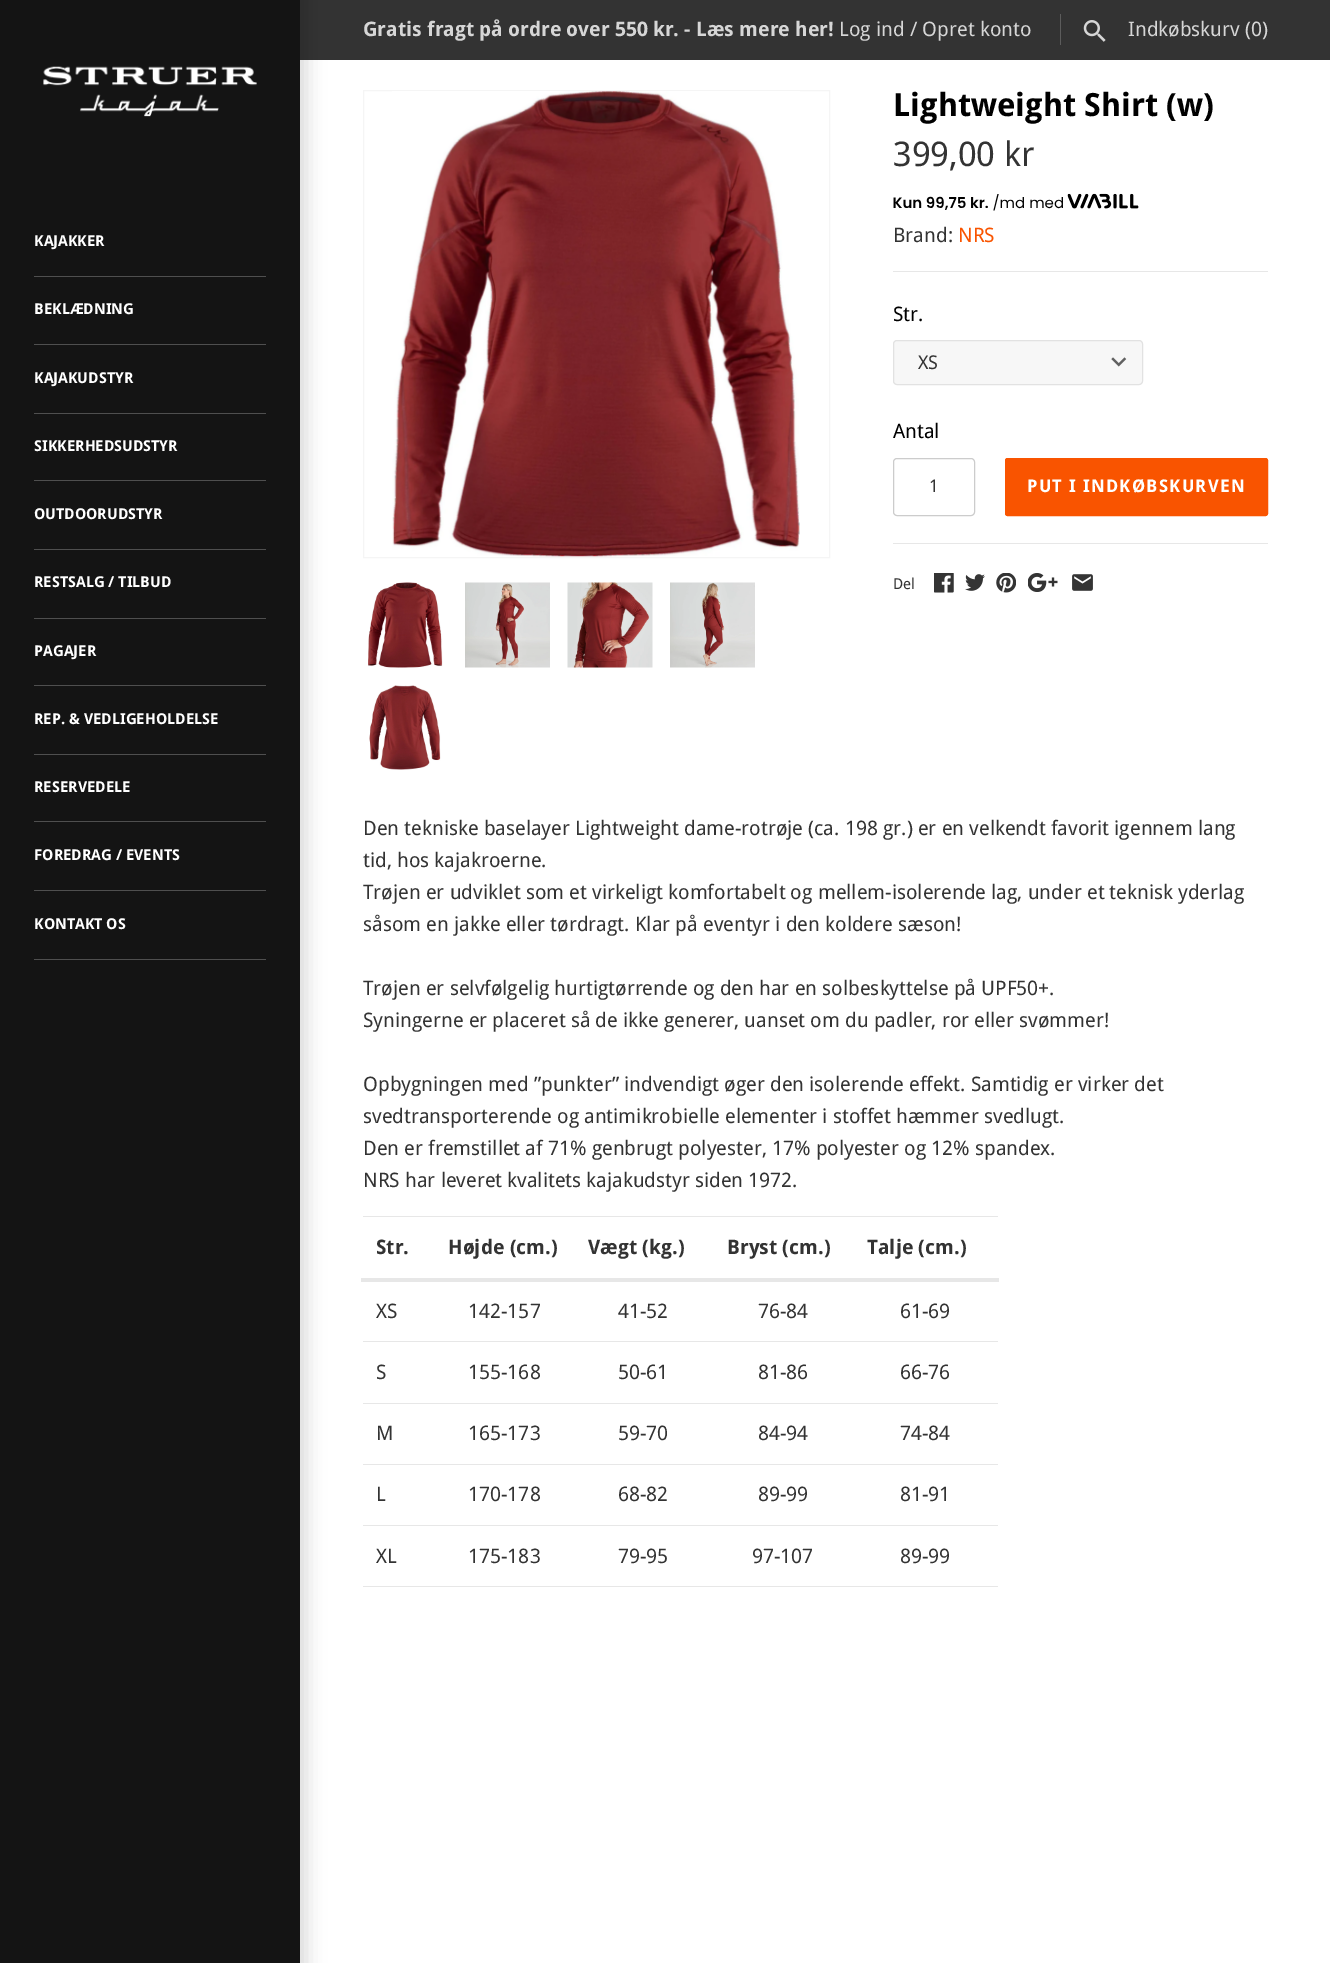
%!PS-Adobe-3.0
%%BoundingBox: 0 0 1330 1963
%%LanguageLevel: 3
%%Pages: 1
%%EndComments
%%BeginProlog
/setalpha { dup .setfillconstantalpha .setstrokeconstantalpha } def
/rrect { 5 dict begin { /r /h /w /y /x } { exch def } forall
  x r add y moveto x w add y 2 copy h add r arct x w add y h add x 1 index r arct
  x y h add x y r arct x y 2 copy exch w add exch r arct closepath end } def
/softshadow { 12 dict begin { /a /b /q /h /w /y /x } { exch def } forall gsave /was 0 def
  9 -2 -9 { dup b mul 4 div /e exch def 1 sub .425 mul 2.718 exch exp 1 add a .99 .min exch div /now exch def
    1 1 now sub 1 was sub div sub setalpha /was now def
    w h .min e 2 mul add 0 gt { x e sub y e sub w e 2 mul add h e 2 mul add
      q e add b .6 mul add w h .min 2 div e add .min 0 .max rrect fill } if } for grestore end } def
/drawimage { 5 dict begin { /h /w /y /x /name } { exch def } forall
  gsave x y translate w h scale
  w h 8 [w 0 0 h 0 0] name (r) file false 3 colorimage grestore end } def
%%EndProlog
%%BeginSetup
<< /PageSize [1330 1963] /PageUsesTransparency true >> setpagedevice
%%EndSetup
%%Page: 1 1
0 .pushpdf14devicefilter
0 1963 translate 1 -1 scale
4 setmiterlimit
1 setgray
0 0 1330 1963 rectfill
0.2 setgray
300 0 1030 60 rectfill
0.361 setgray
1060 14 1 31 rectfill
(images/1.raw) 1083 20 23 22 drawimage
0 setgray
-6 -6 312 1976 0 9.5 0.15 softshadow
0.078 setgray
0 0 300 1963 rectfill
(images/2.raw) 43 66 214 51 drawimage
0.31 setgray
34 276 232 1 rectfill
34 344 232 1 rectfill
34 413 232 1 rectfill
34 480 232 1 rectfill
34 549 232 1 rectfill
34 618 232 1 rectfill
34 685 232 1 rectfill
34 754 232 1 rectfill
34 821 232 1 rectfill
34 890 232 1 rectfill
34 959 232 1 rectfill
0.961 setgray
363.5 90.5 466 467 rectstroke
(images/3.raw) 392 91 408 466 drawimage
(images/4.raw) 368 582 75 86 drawimage
(images/5.raw) 465 582 85 86 drawimage
(images/6.raw) 567 582 86 86 drawimage
(images/7.raw) 670 582 85 86 drawimage
(images/8.raw) 369 685 72 85 drawimage
(images/9.raw) 893 193 246 18 drawimage
0.906 setgray
893 271 375 1 rectfill
0.969 setgray
893 340 250 45 4 rrect fill
(images/10.raw) 1111 357 16 10 drawimage
0.886 setgray
893.5 340.5 249 44 3.5 rrect stroke
0.8 setgray
893.5 458.5 81 57 3.5 rrect stroke
0.976 0.329 0 setrgbcolor
1005.5 458.5 262 57 2 rrect gsave fill grestore
stroke
0.906 setgray
893 543 375 1 rectfill
(images/11.raw) 934 573 20 20 drawimage
(images/12.raw) 965 574 20 17 drawimage
(images/13.raw) 996 573 20 20 drawimage
(images/14.raw) 1028 573 30 19 drawimage
(images/15.raw) 1072 574 21 17 drawimage
363 1216 635 1 rectfill
361 1278 638 4 rectfill
363 1341 635 1 rectfill
363 1403 635 1 rectfill
363 1464 635 1 rectfill
363 1525 635 1 rectfill
363 1586 635 1 rectfill
/DroidSans-Bold [20 0 0 -20 0 0] selectfont
0.839 setgray
363 36 moveto (Gratis fragt på ordre over 550 kr. - Læs mere her!) show
/DroidSans-Regular [20 0 0 -20 0 0] selectfont
839 36 moveto (Log ind / Opret konto) show
1128 36 moveto (Indkøbskurv \(0\)) show
/DroidSans-Bold [15 0 0 -15 0 0] selectfont
1 setgray
34 246 moveto (KAJAKKER) show
34 314 moveto (BEKLÆDNING) show
34 383 moveto (KAJAKUDSTYR) show
34 451 moveto (SIKKERHEDSUDSTYR) show
34 519 moveto (OUTDOORUDSTYR) show
34 587 moveto (RESTSALG / TILBUD) show
34 656 moveto (PAGAJER) show
34 724 moveto (REP. & VEDLIGEHOLDELSE) show
34 792 moveto (RESERVEDELE) show
34 860 moveto (FOREDRAG / EVENTS) show
34 929 moveto (KONTAKT OS) show
/DroidSans-Bold [32 0 0 -32 0 0] selectfont
0 setgray
893 116 moveto (Lightweight Shirt \(w\)) show
/DroidSans-Regular [34 0 0 -34 0 0] selectfont
0.2 setgray
893 166 moveto (399,00 kr) show
/DroidSans-Regular [20 0 0 -20 0 0] selectfont
893 242 moveto (Brand:) show
0.976 0.329 0 setrgbcolor
958 242 moveto (NRS) show
0 setgray
893 321 moveto (Str.) show
/DroidSans-Regular [19 0 0 -19 0 0] selectfont
0.2 setgray
918 369 moveto (XS) show
/DroidSans-Regular [20 0 0 -20 0 0] selectfont
0 setgray
893 438 moveto (Antal) show
/DroidSans-Regular [17.5 0 0 -17.5 0 0] selectfont
0.2 setgray
929 492 moveto (1) show
/DroidSans-Bold [17.5 0 0 -17.5 0 0] selectfont
1 setgray
1027 492 moveto 1.25 0 (PUT I INDKØBSKURVEN) ashow
/DroidSans-Regular [15 0 0 -15 0 0] selectfont
0.2 setgray
893 589 moveto (Del) show
/DroidSans-Regular [20 0 0 -20 0 0] selectfont
363 835 moveto (Den tekniske baselayer Lightweight dame-rotrøje \(ca. 198 gr.\) er en velkendt favorit igennem lang) show
363 867 moveto (tid, hos kajakroerne.) show
363 899 moveto (Trøjen er udviklet som et virkeligt komfortabelt og mellem-isolerende lag, under et teknisk yderlag) show
363 931 moveto (såsom en jakke eller tørdragt. Klar på eventyr i den koldere sæson!) show
363 995 moveto (Trøjen er selvfølgelig hurtigtørrende og den har en solbeskyttelse på UPF50+.) show
363 1027 moveto (Syningerne er placeret så de ikke generer, uanset om du padler, ror eller svømmer!) show
363 1091 moveto (Opbygningen med ”punkter” indvendigt øger den isolerende effekt. Samtidig er virker det) show
363 1123 moveto (svedtransporterende og antimikrobielle elementer i stoffet hæmmer svedlugt.) show
363 1155 moveto (Den er fremstillet af 71% genbrugt polyester, 17% polyester og 12% spandex.) show
363 1187 moveto (NRS har leveret kvalitets kajakudstyr siden 1972.) show
/DroidSans-Bold [20 0 0 -20 0 0] selectfont
376 1254 moveto (Str.) show
448 1254 moveto (Højde \(cm.\)) show
588 1254 moveto (Vægt \(kg.\)) show
727 1254 moveto (Bryst \(cm.\)) show
867 1254 moveto (Talje \(cm.\)) show
/DroidSans-Regular [20 0 0 -20 0 0] selectfont
376 1318 moveto (XS) show
468 1318 moveto (142-157) show
618 1318 moveto (41-52) show
758 1318 moveto (76-84) show
900 1318 moveto (61-69) show
376 1379 moveto (S) show
468 1379 moveto (155-168) show
618 1379 moveto (50-61) show
758 1379 moveto (81-86) show
900 1379 moveto (66-76) show
376 1440 moveto (M) show
468 1440 moveto (165-173) show
618 1440 moveto (59-70) show
758 1440 moveto (84-94) show
900 1440 moveto (74-84) show
376 1501 moveto (L) show
468 1501 moveto (170-178) show
618 1501 moveto (68-82) show
758 1501 moveto (89-99) show
900 1501 moveto (81-91) show
376 1563 moveto (XL) show
468 1563 moveto (175-183) show
618 1563 moveto (79-95) show
752 1563 moveto (97-107) show
900 1563 moveto (89-99) show
.poppdf14devicefilter showpage
%%EOF
